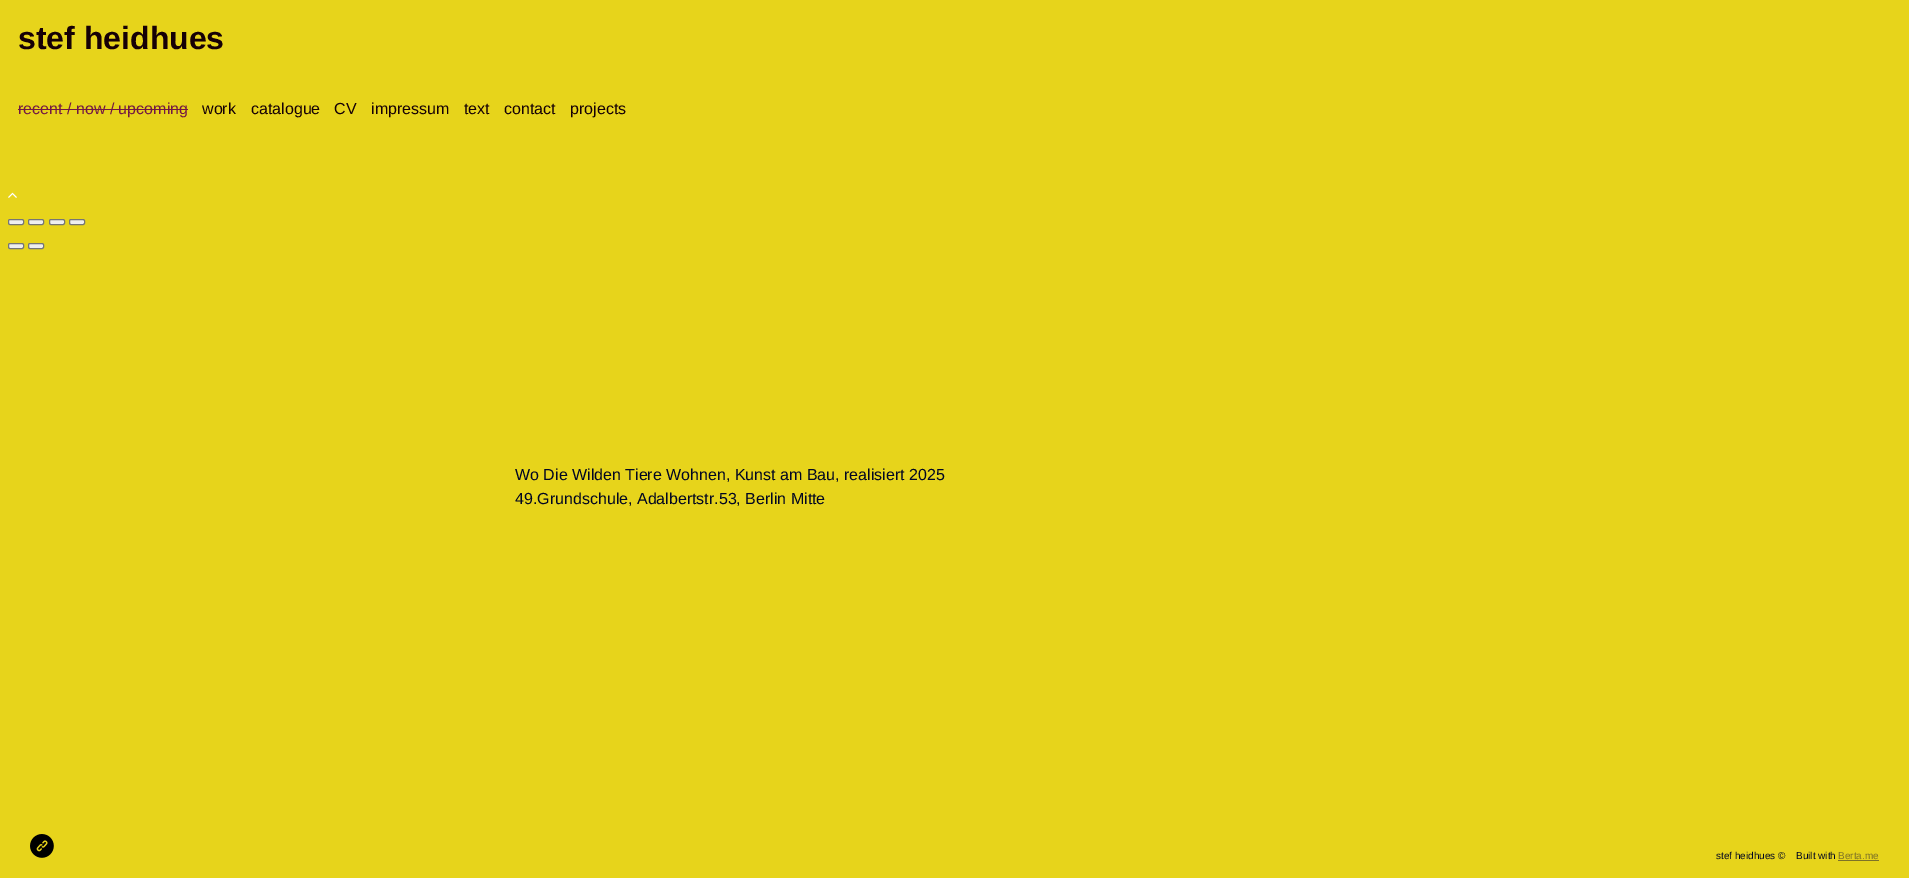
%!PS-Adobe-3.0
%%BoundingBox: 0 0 1909 878
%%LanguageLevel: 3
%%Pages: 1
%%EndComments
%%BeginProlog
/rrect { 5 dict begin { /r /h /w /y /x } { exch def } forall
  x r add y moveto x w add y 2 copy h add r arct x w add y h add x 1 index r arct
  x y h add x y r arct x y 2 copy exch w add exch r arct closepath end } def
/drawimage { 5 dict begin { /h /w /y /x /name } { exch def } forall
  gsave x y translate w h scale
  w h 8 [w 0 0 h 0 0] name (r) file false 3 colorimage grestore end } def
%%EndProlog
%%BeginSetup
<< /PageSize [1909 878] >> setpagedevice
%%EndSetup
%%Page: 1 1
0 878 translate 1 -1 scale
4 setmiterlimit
0.906 0.831 0.106 setrgbcolor
0 0 1909 878 rectfill
0.451 0.094 0.267 setrgbcolor
18 109 170 1 rectfill
1 setgray
newpath 16.5 197.5 moveto 12.5 193.5 lineto 8.5 197.5 lineto stroke
0.937 setgray
8.5 219.5 15 5 1.5 rrect gsave fill grestore
0.463 setgray
stroke
0.937 setgray
28.5 219.5 15 5 1.5 rrect gsave fill grestore
0.463 setgray
stroke
0.937 setgray
49.5 219.5 15 5 1.5 rrect gsave fill grestore
0.463 setgray
stroke
0.937 setgray
69.5 219.5 15 5 1.5 rrect gsave fill grestore
0.463 setgray
stroke
0.937 setgray
8.5 243.5 15 5 1.5 rrect gsave fill grestore
0.463 setgray
stroke
0.937 setgray
28.5 243.5 15 5 1.5 rrect gsave fill grestore
0.463 setgray
stroke
(images/1.raw) 30 834 24 24 drawimage
0.49 0.447 0.157 setrgbcolor
1838 860 41 1 rectfill
/LiberationSans-Bold [32 0 0 -32 0 0] selectfont
0.086 0 0.024 setrgbcolor
18 49 moveto (stef heidhues) show
/LiberationSans-Regular [16 0 0 -16 0 0] selectfont
0.451 0.094 0.267 setrgbcolor
18 114 moveto (recent / now / upcoming) show
0.086 0 0.024 setrgbcolor
202 114 moveto (work) show
251 114 moveto (catalogue) show
334 114 moveto (CV) show
371 114 moveto (impressum) show
464 114 moveto (text) show
504 114 moveto (contact) show
570 114 moveto (projects) show
0.004 0.024 0.137 setrgbcolor
515 480 moveto (Wo Die Wilden Tiere Wohnen, Kunst am Bau, realisiert 2025) show
515 504 moveto (49.Grundschule, Adalbertstr.53, Berlin Mitte) show
/LiberationSans-Regular [10 0 0 -10 0 0] selectfont
1716 859 moveto (stef heidhues ©) show
1796 859 moveto (Built with) show
0.49 0.447 0.157 setrgbcolor
1838 859 moveto (Berta.me) show
showpage
%%EOF
